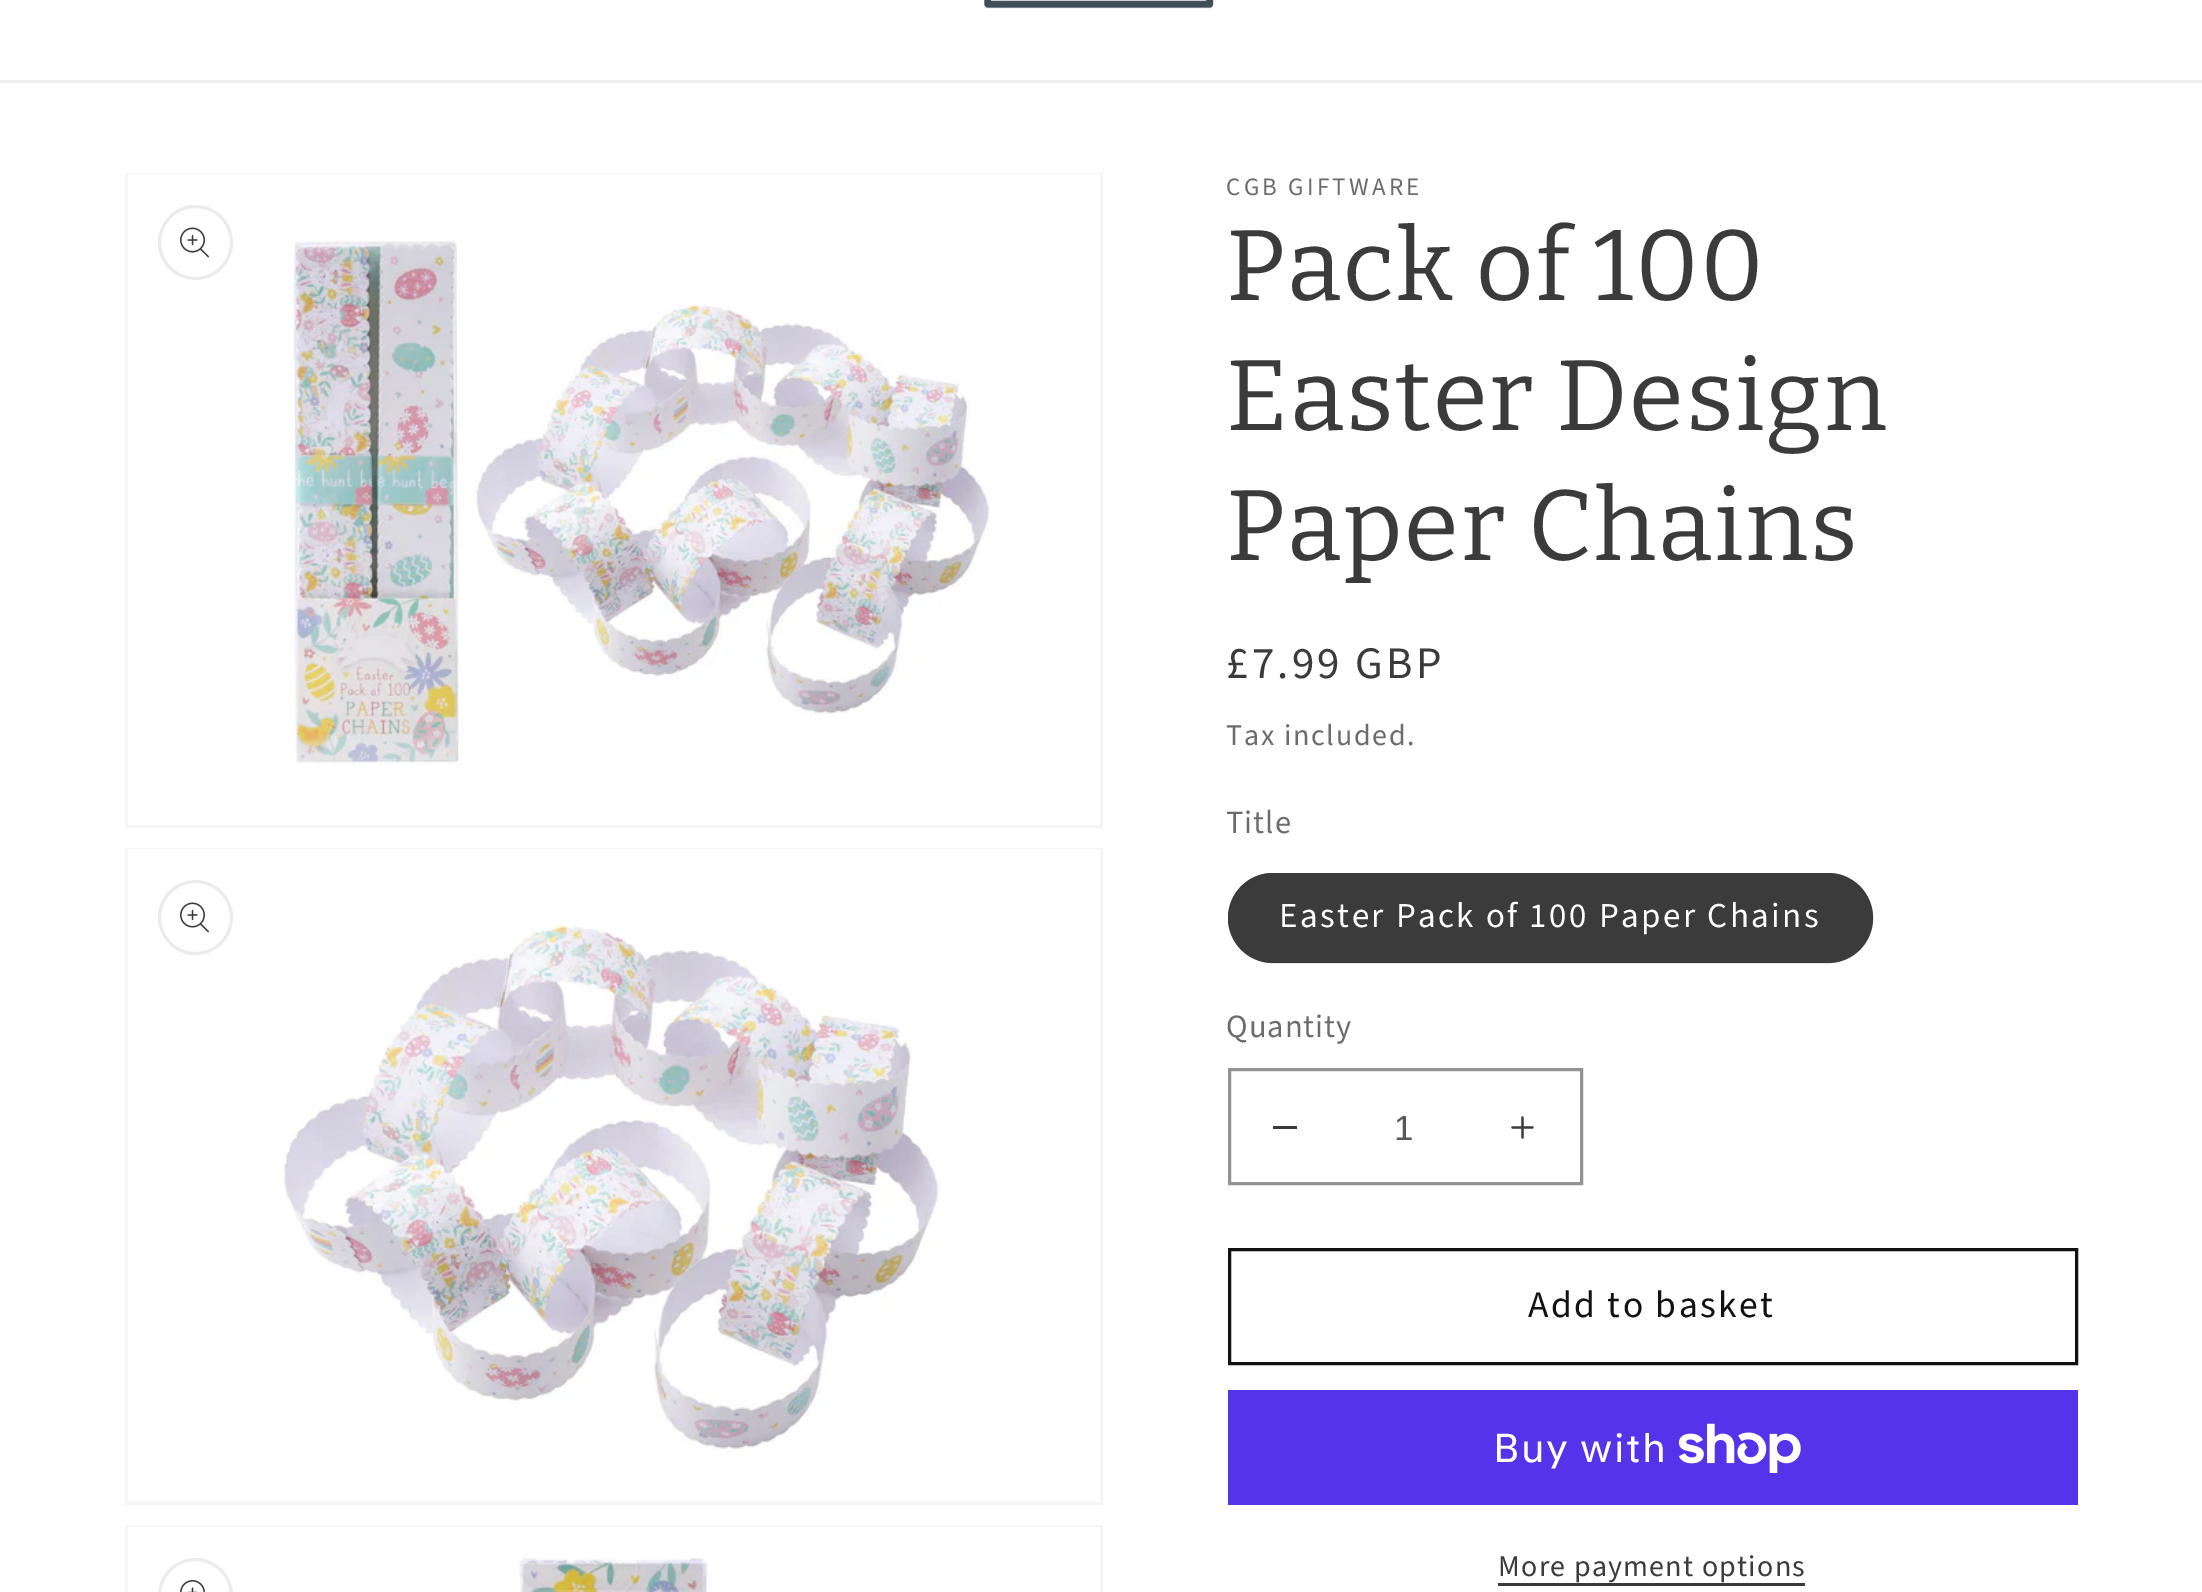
%!PS-Adobe-3.0
%%BoundingBox: 0 0 2202 1592
%%LanguageLevel: 3
%%Pages: 1
%%EndComments
%%BeginProlog
/setalpha { dup .setfillconstantalpha .setstrokeconstantalpha } def
/rrect { 5 dict begin { /r /h /w /y /x } { exch def } forall
  x r add y moveto x w add y 2 copy h add r arct x w add y h add x 1 index r arct
  x y h add x y r arct x y 2 copy exch w add exch r arct closepath end } def
/drawimage { 5 dict begin { /h /w /y /x /name } { exch def } forall
  gsave x y translate w h scale
  w h 8 [w 0 0 h 0 0] name (r) file false 3 colorimage grestore end } def
%%EndProlog
%%BeginSetup
<< /PageSize [2202 1592] /PageUsesTransparency true >> setpagedevice
%%EndSetup
%%Page: 1 1
0 .pushpdf14devicefilter
0 1592 translate 1 -1 scale
4 setmiterlimit
1 setgray
0 0 2202 1592 rectfill
0.937 setgray
0 80 2202 3 rectfill
(images/1.raw) 984 0 231 9 drawimage
0.961 setgray
3 setlinewidth
126.5 174.5 975 652 rectstroke
(images/2.raw) 127 174 973 650 drawimage
0.922 setgray
newpath 195.5 242.5 36 0 360 arc closepath stroke
(images/3.raw) 180 227 29 31 drawimage
0.961 setgray
126.5 849.5 975 654 rectstroke
(images/4.raw) 127 849 973 653 drawimage
0.922 setgray
newpath 195.5 917.5 36 0 360 arc closepath stroke
(images/3.raw) 180 902 29 31 drawimage
0.961 setgray
126.5 1526.5 975 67 rectstroke
(images/5.raw) 127 1527 973 65 drawimage
0.922 setgray
newpath 195.5 1595.5 36 0 360 arc closepath stroke
(images/6.raw) 180 1580 25 12 drawimage
0.231 setgray
1228 873 645 90 45 rrect fill
0.55 setalpha
1229.5 874.5 642 87 43.5 rrect stroke
1 setalpha
1273 1126 24 3 rectfill
(images/7.raw) 1511 1116 23 23 drawimage
0.576 setgray
1229.5 1069.5 352 114 rectstroke
0.071 setgray
1229.5 1249.5 847 114 rectstroke
0.329 0.2 0.922 setrgbcolor
1228 1390 850 115 rectfill
(images/8.raw) 1678 1423 123 50 drawimage
0.231 setgray
1498 1583 307 3 rectfill
/SourceSansPro-Regular [25 0 0 -25 0 0] selectfont
0.424 setgray
1226 195 moveto 3.25 0 (CGB GIFTWARE) ashow
/Bitter-Regular [100 0 0 -100 0 0] selectfont
0.231 setgray
1226 300 moveto 1.5 0 (Pack of 100) ashow
1226 430 moveto 1.5 0 (Easter Design) ashow
1226 560 moveto 1.5 0 (Paper Chains) ashow
/SourceSansPro-Regular [45 0 0 -45 0 0] selectfont
1226 678 moveto 3.25 0 (£7.99 GBP) ashow
/SourceSansPro-Regular [30 0 0 -30 0 0] selectfont
0.424 setgray
1226 745 moveto 1.75 0 (Tax included.) ashow
/SourceSansPro-Regular [32.5 0 0 -32.5 0 0] selectfont
1226 833 moveto 1 0 (Title) ashow
/SourceSansPro-Regular [35 0 0 -35 0 0] selectfont
1 setgray
1279 927 moveto 2.5 0 (Easter Pack of 100 Paper Chains) ashow
/SourceSansPro-Regular [32.5 0 0 -32.5 0 0] selectfont
0.424 setgray
1226 1037 moveto 1 0 (Quantity) ashow
/LiberationSans-Regular [35 0 0 -35 0 0] selectfont
0.345 setgray
1394 1140 moveto (1) show
/SourceSansPro-Regular [37.5 0 0 -37.5 0 0] selectfont
0.071 setgray
1528 1317 moveto 2.5 0 (Add to basket) ashow
/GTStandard-Regular [40 0 0 -40 0 0] selectfont
1 setgray
1493 1462 moveto 1.5 0 (Buy with) ashow
/SourceSansPro-Regular [30 0 0 -30 0 0] selectfont
0.231 setgray
1498 1576 moveto 1.25 0 (More payment options) ashow
.poppdf14devicefilter showpage
%%EOF
